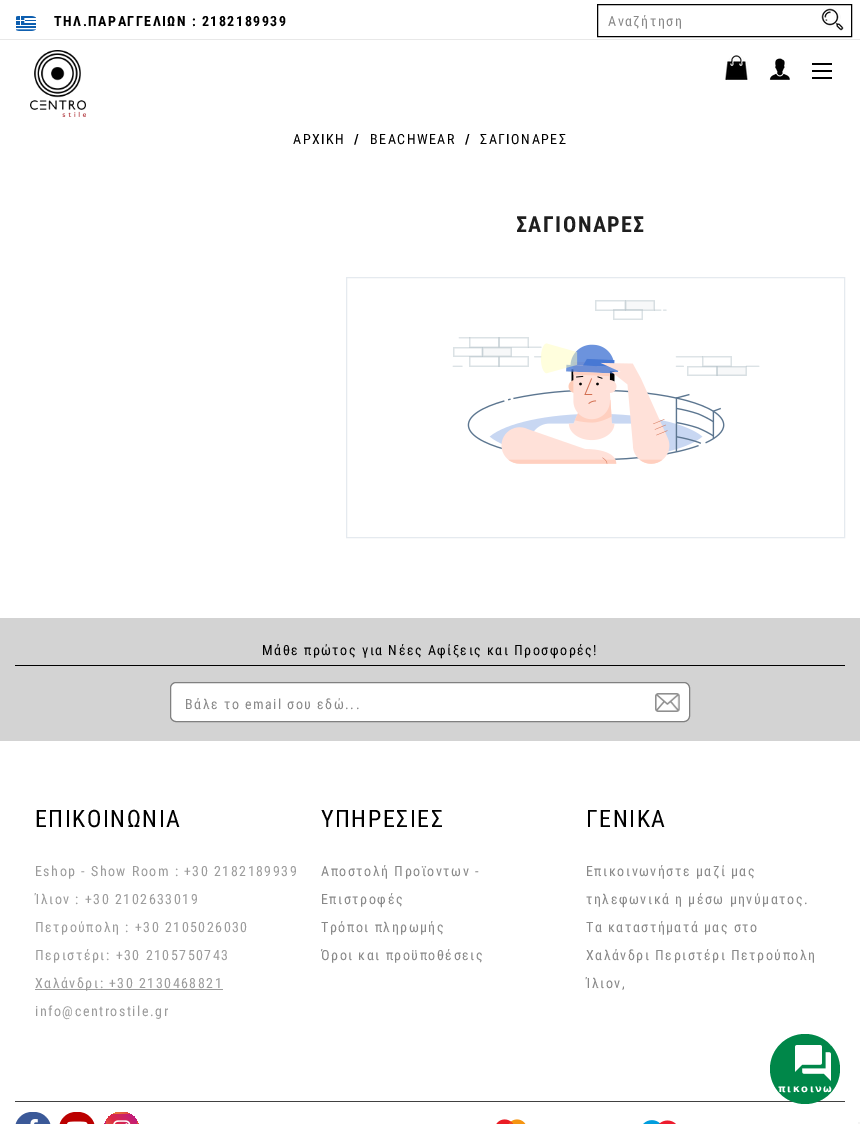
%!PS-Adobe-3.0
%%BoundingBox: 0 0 860 1124
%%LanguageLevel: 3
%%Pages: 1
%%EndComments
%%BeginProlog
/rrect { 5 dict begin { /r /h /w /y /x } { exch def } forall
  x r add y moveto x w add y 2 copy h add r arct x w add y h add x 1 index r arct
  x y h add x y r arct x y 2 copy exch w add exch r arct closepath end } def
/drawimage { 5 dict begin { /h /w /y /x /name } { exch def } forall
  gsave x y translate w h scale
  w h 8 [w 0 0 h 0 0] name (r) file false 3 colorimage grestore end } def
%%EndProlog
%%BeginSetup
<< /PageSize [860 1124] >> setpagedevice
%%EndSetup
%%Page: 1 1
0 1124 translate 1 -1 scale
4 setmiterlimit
1 setgray
0 0 860 1124 rectfill
0.91 setgray
0 39 860 1 rectfill
(images/1.raw) 16 16 20 15 drawimage
0 setgray
597.5 4.5 254 32 rectstroke
(images/2.raw) 821 8 23 23 drawimage
(images/3.raw) 30 50 56 67 drawimage
(images/4.raw) 725 55 24 25 drawimage
(images/5.raw) 769 58 21 22 drawimage
812 63 20 2 rectfill
812 70 20 2 rectfill
812 77 20 2 rectfill
0.898 0.918 0.937 setrgbcolor
346.5 277.5 498 260 rectstroke
(images/6.raw) 452 300 308 164 drawimage
0.827 setgray
0 618 860 123 rectfill
0 setgray
15 665 830 1 rectfill
1 setgray
170.5 682.5 519 39 5.5 rrect gsave fill grestore
0.502 setgray
stroke
(images/7.raw) 655 693 25 19 drawimage
0.255 setgray
15 1101 830 1 rectfill
0.608 setgray
35 989 188 1 rectfill
0.231 0.349 0.596 setrgbcolor
15 1112 36 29 17 rrect fill
(images/8.raw) 30 1119 8 5 drawimage
0.733 0 0 setrgbcolor
59 1112 36 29 17 rrect fill
(images/9.raw) 67 1121 21 3 drawimage
gsave
104 1112 35 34 17 rrect clip newpath
gsave newpath 106 1112 moveto 137 1112 lineto 137 1114 lineto 106 1114 lineto closepath clip newpath
<< /ShadingType 2 /ColorSpace /DeviceRGB /Coords [106 1114 137 1084] /Extend [true true] /Function << /FunctionType 3 /Domain [0 1] /Functions [<< /FunctionType 2 /Domain [0 1] /C0 [0.941 0.58 0.2] /C1 [0.902 0.408 0.235] /N 1 >> << /FunctionType 2 /Domain [0 1] /C0 [0.902 0.408 0.235] /C1 [0.863 0.153 0.263] /N 1 >> << /FunctionType 2 /Domain [0 1] /C0 [0.863 0.153 0.263] /C1 [0.8 0.137 0.4] /N 1 >> << /FunctionType 2 /Domain [0 1] /C0 [0.8 0.137 0.4] /C1 [0.737 0.094 0.533] /N 1 >>] /Bounds [0.25 0.5 0.75] /Encode [0 1 0 1 0 1 0 1] >> >> shfill grestore
gsave newpath 104 1114 moveto 106 1114 lineto 106 1124 lineto 104 1124 lineto closepath clip newpath
<< /ShadingType 2 /ColorSpace /DeviceRGB /Coords [75 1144 106 1114] /Extend [true true] /Function << /FunctionType 3 /Domain [0 1] /Functions [<< /FunctionType 2 /Domain [0 1] /C0 [0.941 0.58 0.2] /C1 [0.902 0.408 0.235] /N 1 >> << /FunctionType 2 /Domain [0 1] /C0 [0.902 0.408 0.235] /C1 [0.863 0.153 0.263] /N 1 >> << /FunctionType 2 /Domain [0 1] /C0 [0.863 0.153 0.263] /C1 [0.8 0.137 0.4] /N 1 >> << /FunctionType 2 /Domain [0 1] /C0 [0.8 0.137 0.4] /C1 [0.737 0.094 0.533] /N 1 >>] /Bounds [0.25 0.5 0.75] /Encode [0 1 0 1 0 1 0 1] >> >> shfill grestore
gsave newpath 106 1114 moveto 137 1114 lineto 137 1124 lineto 106 1124 lineto closepath clip newpath
<< /ShadingType 2 /ColorSpace /DeviceRGB /Coords [106 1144 137 1114] /Extend [true true] /Function << /FunctionType 3 /Domain [0 1] /Functions [<< /FunctionType 2 /Domain [0 1] /C0 [0.941 0.58 0.2] /C1 [0.902 0.408 0.235] /N 1 >> << /FunctionType 2 /Domain [0 1] /C0 [0.902 0.408 0.235] /C1 [0.863 0.153 0.263] /N 1 >> << /FunctionType 2 /Domain [0 1] /C0 [0.863 0.153 0.263] /C1 [0.8 0.137 0.4] /N 1 >> << /FunctionType 2 /Domain [0 1] /C0 [0.8 0.137 0.4] /C1 [0.737 0.094 0.533] /N 1 >>] /Bounds [0.25 0.5 0.75] /Encode [0 1 0 1 0 1 0 1] >> >> shfill grestore
gsave newpath 137 1114 moveto 139 1114 lineto 139 1124 lineto 137 1124 lineto closepath clip newpath
<< /ShadingType 2 /ColorSpace /DeviceRGB /Coords [137 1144 168 1114] /Extend [true true] /Function << /FunctionType 3 /Domain [0 1] /Functions [<< /FunctionType 2 /Domain [0 1] /C0 [0.941 0.58 0.2] /C1 [0.902 0.408 0.235] /N 1 >> << /FunctionType 2 /Domain [0 1] /C0 [0.902 0.408 0.235] /C1 [0.863 0.153 0.263] /N 1 >> << /FunctionType 2 /Domain [0 1] /C0 [0.863 0.153 0.263] /C1 [0.8 0.137 0.4] /N 1 >> << /FunctionType 2 /Domain [0 1] /C0 [0.8 0.137 0.4] /C1 [0.737 0.094 0.533] /N 1 >>] /Bounds [0.25 0.5 0.75] /Encode [0 1 0 1 0 1 0 1] >> >> shfill grestore
grestore
(images/10.raw) 113 1120 18 4 drawimage
(images/11.raw) 496 1119 30 5 drawimage
(images/12.raw) 643 1120 33 4 drawimage
0 0.529 0.286 setrgbcolor
newpath 805 1069 35 0 360 arc closepath fill
(images/13.raw) 795 1045 36 36 drawimage
0.961 setgray
858 1122 2 2 rectfill
/RobotoCondensed-Bold [14 0 0 -14 0 0] selectfont
0 setgray
54 26 moveto 1.5 0 (ΤΗΛ.ΠΑΡΑΓΓΕΛΙΩΝ : 2182189939) ashow
/RobotoCondensed-Regular [14 0 0 -14 0 0] selectfont
0.533 setgray
608 26 moveto 1.5 0 (Αναζήτηση) ashow
0 setgray
293 144 moveto 1.5 0 (ΑΡΧΙΚΗ) ashow
/RobotoCondensed-Bold [14 0 0 -14 0 0] selectfont
354 144 moveto 1.5 0 (/) ashow
/RobotoCondensed-Regular [14 0 0 -14 0 0] selectfont
370 144 moveto 1.5 0 (BEACHWEAR) ashow
/RobotoCondensed-Bold [14 0 0 -14 0 0] selectfont
465 144 moveto 1.5 0 (/) ashow
/RobotoCondensed-Regular [14 0 0 -14 0 0] selectfont
480 144 moveto 1.5 0 (ΣΑΓΙΟΝΑΡΕΣ) ashow
/RobotoCondensed-Bold [22 0 0 -22 0 0] selectfont
0.122 setgray
516 232 moveto 1.5 0 (ΣΑΓΙΟΝΑΡΕΣ) ashow
/RobotoCondensed-Regular [14 0 0 -14 0 0] selectfont
0 setgray
262 655 moveto 1.5 0 (Μάθε πρώτος για Νέες Aφίξεις και Προσφορές!) ashow
0.533 setgray
185 709 moveto 1.5 0 (Βάλε το email σου εδώ...) ashow
/RobotoCondensed-Regular [24 0 0 -24 0 0] selectfont
0 setgray
35 827 moveto 1.5 0 (ΕΠΙΚΟΙΝΩΝΙΑ) ashow
/RobotoCondensed-Regular [14 0 0 -14 0 0] selectfont
0.608 setgray
35 876 moveto 1.5 0 (Eshop - Show Room : +30 2182189939) ashow
35 904 moveto 1.5 0 (Ίλιον : +30 2102633019) ashow
35 932 moveto 1.5 0 (Πετρούπολη : +30 2105026030) ashow
35 960 moveto 1.5 0 (Περιστέρι: +30 2105750743) ashow
35 988 moveto 1.5 0 (Χαλάνδρι: +30 2130468821) ashow
35 1016 moveto 1.5 0 (info@centrostile.gr) ashow
/RobotoCondensed-Regular [24 0 0 -24 0 0] selectfont
0 setgray
321 827 moveto 1.5 0 (ΥΠΗΡΕΣΙΕΣ) ashow
/RobotoCondensed-Regular [14 0 0 -14 0 0] selectfont
0.533 setgray
321 876 moveto 1.5 0 (Αποστολή Προϊοντων -) ashow
321 904 moveto 1.5 0 (Επιστροφές) ashow
321 932 moveto 1.5 0 (Τρόποι πληρωμής) ashow
321 960 moveto 1.5 0 (Όροι και προϋποθέσεις) ashow
/RobotoCondensed-Regular [24 0 0 -24 0 0] selectfont
0 setgray
586 827 moveto 1.5 0 (ΓΕΝΙΚΑ) ashow
/RobotoCondensed-Regular [14 0 0 -14 0 0] selectfont
0.533 setgray
586 876 moveto 1.5 0 (Επικοινωνήστε μαζί μας) ashow
586 904 moveto 1.5 0 (τηλεφωνικά η μέσω μηνύματος.) ashow
586 932 moveto 1.5 0 (Τα καταστήματά μας στο) ashow
586 960 moveto 1.5 0 (Χαλάνδρι Περιστέρι Πετρούπολη) ashow
586 988 moveto 1.5 0 (Ίλιον,) ashow
/DejaVuSans-Bold [10 0 0 -10 0 0] selectfont
1 setgray
778 1092 moveto 1.5 0 (πικοινω) ashow
showpage
%%EOF
